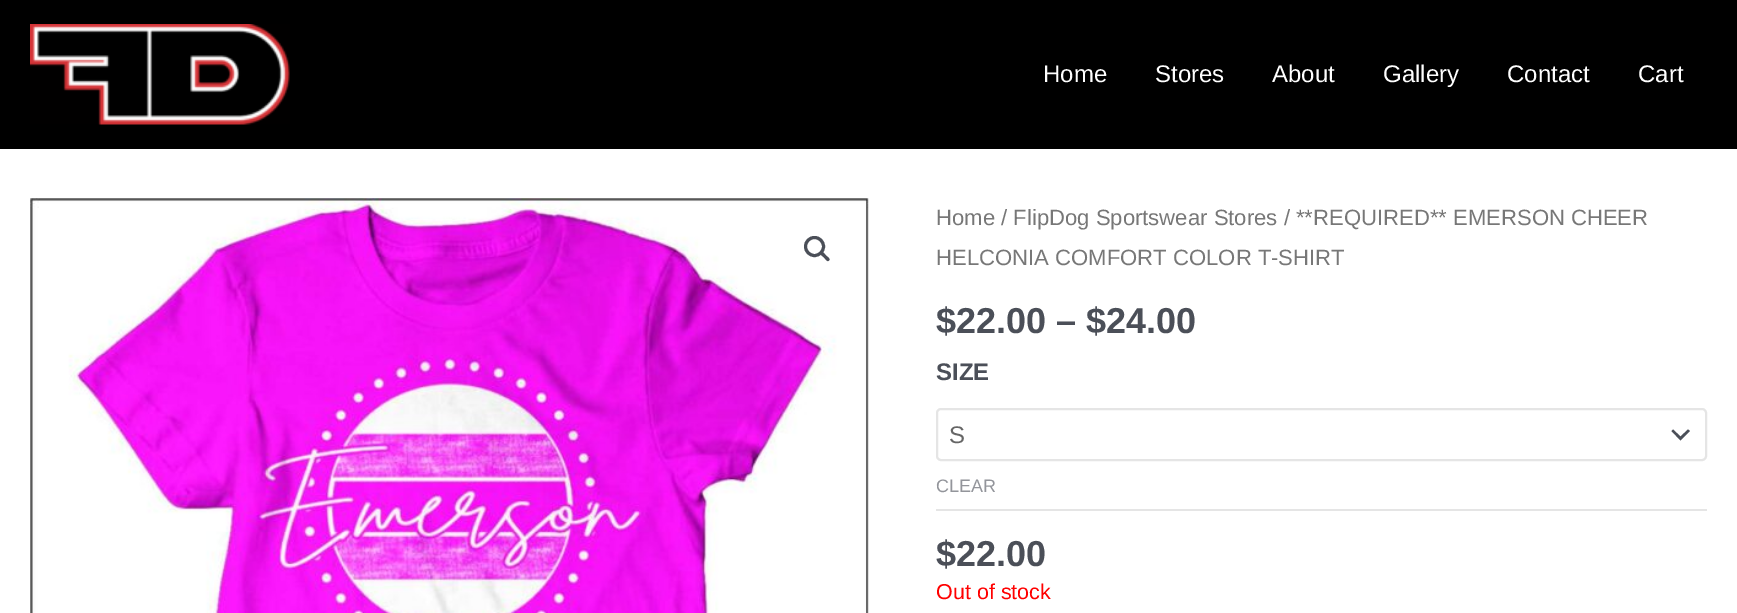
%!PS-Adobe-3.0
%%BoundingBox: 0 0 1737 613
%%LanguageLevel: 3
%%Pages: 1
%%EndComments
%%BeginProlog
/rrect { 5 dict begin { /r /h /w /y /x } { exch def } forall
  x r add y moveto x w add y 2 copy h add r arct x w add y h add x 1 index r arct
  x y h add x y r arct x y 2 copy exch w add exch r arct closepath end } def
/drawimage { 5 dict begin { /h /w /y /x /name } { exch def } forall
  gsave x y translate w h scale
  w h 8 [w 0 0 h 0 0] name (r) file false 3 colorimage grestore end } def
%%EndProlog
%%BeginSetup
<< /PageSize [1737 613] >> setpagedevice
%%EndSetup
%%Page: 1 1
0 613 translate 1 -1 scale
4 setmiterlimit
1 setgray
0 0 1737 613 rectfill
0 setgray
0 0 1737 149 rectfill
(images/1.raw) 30 24 260 101 drawimage
(images/2.raw) 30 198 839 415 drawimage
0.294 0.31 0.345 setrgbcolor
3 setlinewidth
newpath 814.5 246.5 9 0 360 arc closepath stroke
newpath 821 252.5 moveto 822.5 250.5 825 254.5 826 255.5 curveto 827 256.5 831 259 829 260.5 curveto 827.5 262.5 825 258.5 824 257.5 curveto 823 256.5 819 254 821 252.5 curveto closepath fill
0.898 setgray
936 509 771 2 rectfill
0.294 0.31 0.345 setrgbcolor
newpath 1671.5 431 moveto 1680.5 440.5 lineto 1690 431 lineto 1688 429.5 lineto 1680.5 436.5 lineto 1673 429.5 lineto closepath fill
0.898 setgray
2 setlinewidth
937 409 769 51 4 rrect stroke
/LiberationSans-Regular [24 0 0 -24 0 0] selectfont
1 setgray
1043 82 moveto (Home) show
1155 82 moveto (Stores) show
1272 82 moveto (About) show
1383 82 moveto (Gallery) show
1507 82 moveto (Contact) show
1638 82 moveto (Cart) show
/LiberationSans-Regular [22.1 0 0 -22.1 0 0] selectfont
0.467 setgray
936 225 moveto (Home / FlipDog Sportswear Stores / **REQUIRED** EMERSON CHEER) show
936 265 moveto (HELCONIA COMFORT COLOR T-SHIRT) show
/LiberationSans-Bold [36 0 0 -36 0 0] selectfont
0.294 0.31 0.345 setrgbcolor
936 333 moveto ($22.00 – $24.00) show
/LiberationSans-Bold [24 0 0 -24 0 0] selectfont
936 380 moveto (SIZE) show
/LiberationSans-Regular [24 0 0 -24 0 0] selectfont
0.4 setgray
949 443 moveto (S) show
/LiberationSans-Regular [18 0 0 -18 0 0] selectfont
0.576 0.584 0.608 setrgbcolor
936 492 moveto (CLEAR) show
/LiberationSans-Bold [36 0 0 -36 0 0] selectfont
0.294 0.31 0.345 setrgbcolor
936 566 moveto ($22.00) show
/LiberationSans-Regular [21.5 0 0 -21.5 0 0] selectfont
1 0 0 setrgbcolor
936 599 moveto (Out of stock) show
showpage
%%EOF
